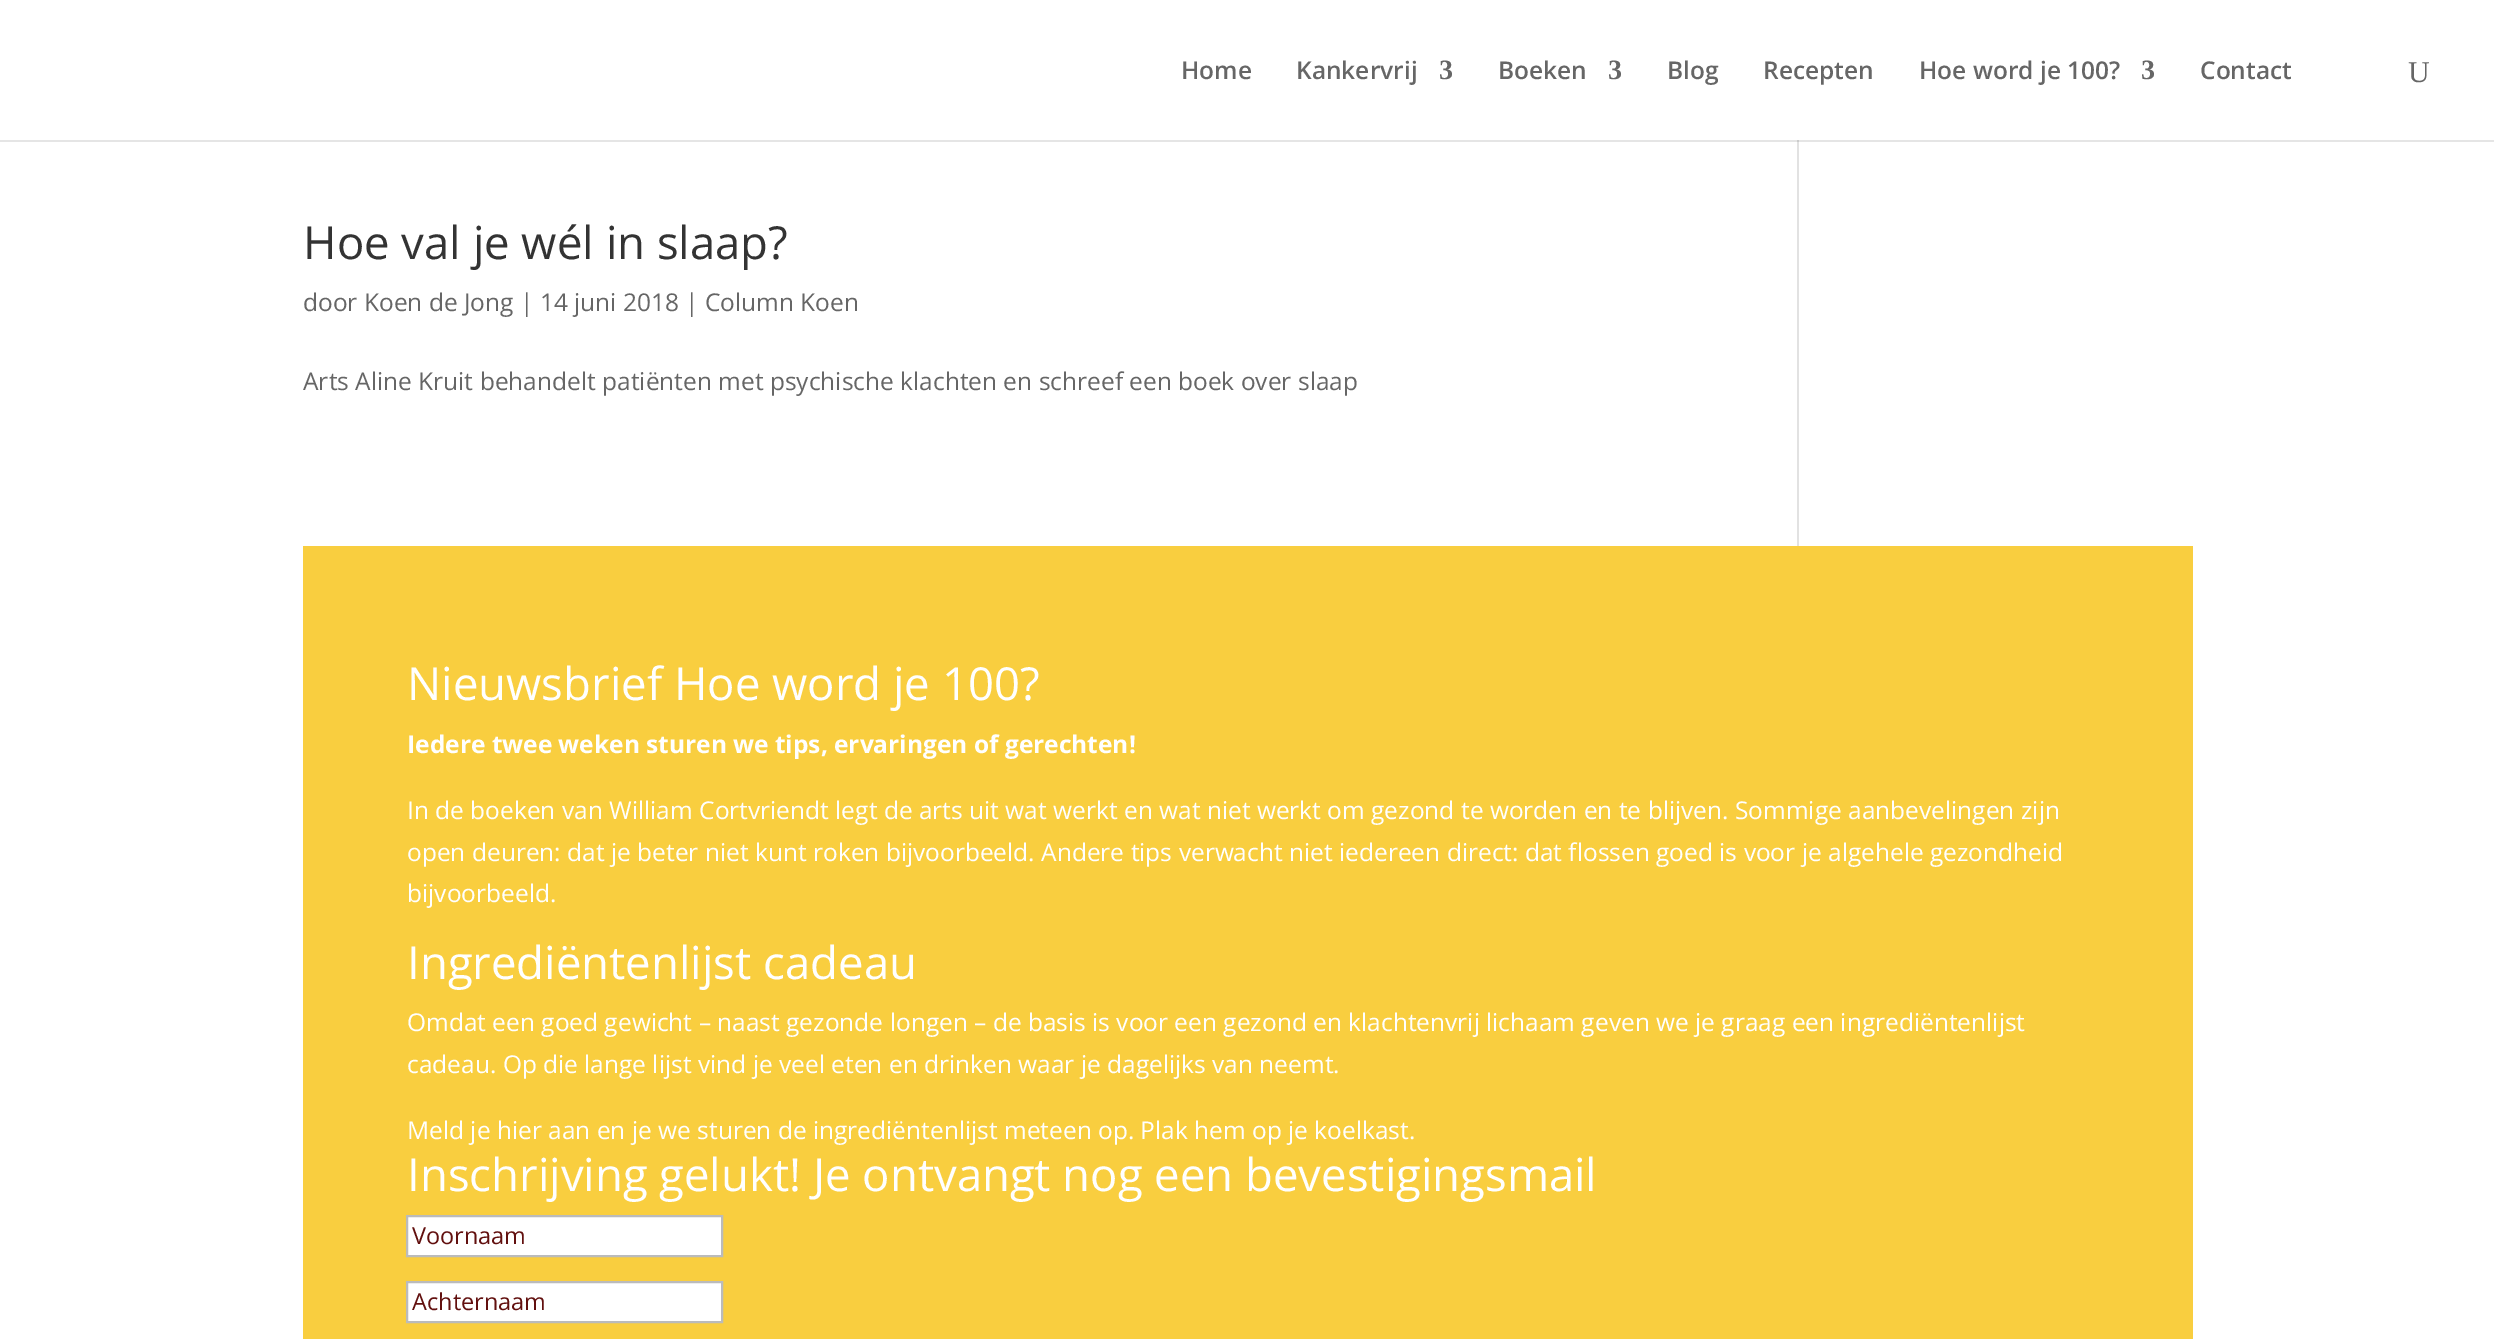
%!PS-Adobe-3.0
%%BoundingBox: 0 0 2494 1339
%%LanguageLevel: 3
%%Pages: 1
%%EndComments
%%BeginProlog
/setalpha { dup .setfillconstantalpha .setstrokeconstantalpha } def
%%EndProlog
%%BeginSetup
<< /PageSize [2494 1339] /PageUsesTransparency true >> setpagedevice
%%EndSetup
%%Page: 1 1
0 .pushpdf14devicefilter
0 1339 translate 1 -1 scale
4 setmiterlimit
1 setgray
0 0 2494 1339 rectfill
0.886 setgray
1797 140 2 406 rectfill
0.1 setalpha
0 setgray
newpath 0 140 moveto 0 142 lineto 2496 142 lineto 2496 2 lineto 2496 140 lineto closepath fill
1 setalpha
0.976 0.808 0.247 setrgbcolor
303 546 1890 793 rectfill
1 setgray
newpath 407 1216 moveto 722 1216 lineto 722 1256 lineto 407 1256 lineto closepath gsave fill grestore
0.733 setgray
2 setlinewidth
stroke
1 setgray
newpath 407 1282 moveto 722 1282 lineto 722 1322 lineto 407 1322 lineto closepath gsave fill grestore
0.733 setgray
stroke
/OpenSans-SemiBold [24.5 0 0 -24.5 0 0] selectfont
0.4 setgray
1181 79 moveto (Home) show
1296 79 moveto (Kankervrij) show
/LiberationSerif-Bold [28 0 0 -28 0 0] selectfont
1439 79 moveto (3) show
/OpenSans-SemiBold [24.5 0 0 -24.5 0 0] selectfont
1498 79 moveto (Boeken) show
/LiberationSerif-Bold [28 0 0 -28 0 0] selectfont
1608 79 moveto (3) show
/OpenSans-SemiBold [24.5 0 0 -24.5 0 0] selectfont
1667 79 moveto (Blog) show
1763 79 moveto (Recepten) show
1919 79 moveto (Hoe word je 100?) show
/LiberationSerif-Bold [28 0 0 -28 0 0] selectfont
2141 79 moveto (3) show
/OpenSans-SemiBold [24.5 0 0 -24.5 0 0] selectfont
2200 79 moveto (Contact) show
/LiberationSerif-Regular [30 0 0 -30 0 0] selectfont
2408 82 moveto (U) show
/OpenSans-Regular [45.5 0 0 -45.5 0 0] selectfont
0.2 setgray
303 259 moveto (Hoe val je wél in slaap?) show
/OpenSans-Regular [24.5 0 0 -24.5 0 0] selectfont
0.4 setgray
303 311 moveto (door Koen de Jong | 14 juni 2018 | Column Koen) show
303 390 moveto (Arts Aline Kruit behandelt patiënten met psychische klachten en schreef een boek over slaap) show
/OpenSans-Regular [45.5 0 0 -45.5 0 0] selectfont
1 setgray
407 700 moveto (Nieuwsbrief Hoe word je 100?) show
/OpenSans-Bold [24.5 0 0 -24.5 0 0] selectfont
407 753 moveto (Iedere twee weken sturen we tips, ervaringen of gerechten!) show
/OpenSans-Regular [24.5 0 0 -24.5 0 0] selectfont
407 819 moveto (In de boeken van William Cortvriendt legt de arts uit wat werkt en wat niet werkt om gezond te worden en te blijven. Sommige aanbevelingen zijn) show
407 861 moveto (open deuren: dat je beter niet kunt roken bijvoorbeeld. Andere tips verwacht niet iedereen direct: dat flossen goed is voor je algehele gezondheid) show
407 902 moveto (bijvoorbeeld.) show
/OpenSans-Regular [45.5 0 0 -45.5 0 0] selectfont
407 979 moveto (Ingrediëntenlijst cadeau) show
/OpenSans-Regular [24.5 0 0 -24.5 0 0] selectfont
407 1031 moveto (Omdat een goed gewicht – naast gezonde longen – de basis is voor een gezond en klachtenvrij lichaam geven we je graag een ingrediëntenlijst) show
407 1073 moveto (cadeau. Op die lange lijst vind je veel eten en drinken waar je dagelijks van neemt.) show
407 1139 moveto (Meld je hier aan en je we sturen de ingrediëntenlijst meteen op. Plak hem op je koelkast.) show
/OpenSans-Regular [45.5 0 0 -45.5 0 0] selectfont
407 1191 moveto (Inschrijving gelukt! Je ontvangt nog een bevestigingsmail) show
/OpenSans-Regular [23.5 0 0 -23.5 0 0] selectfont
0.384 0.063 0.059 setrgbcolor
412 1244 moveto (Voornaam) show
412 1310 moveto (Achternaam) show
.poppdf14devicefilter showpage
%%EOF
